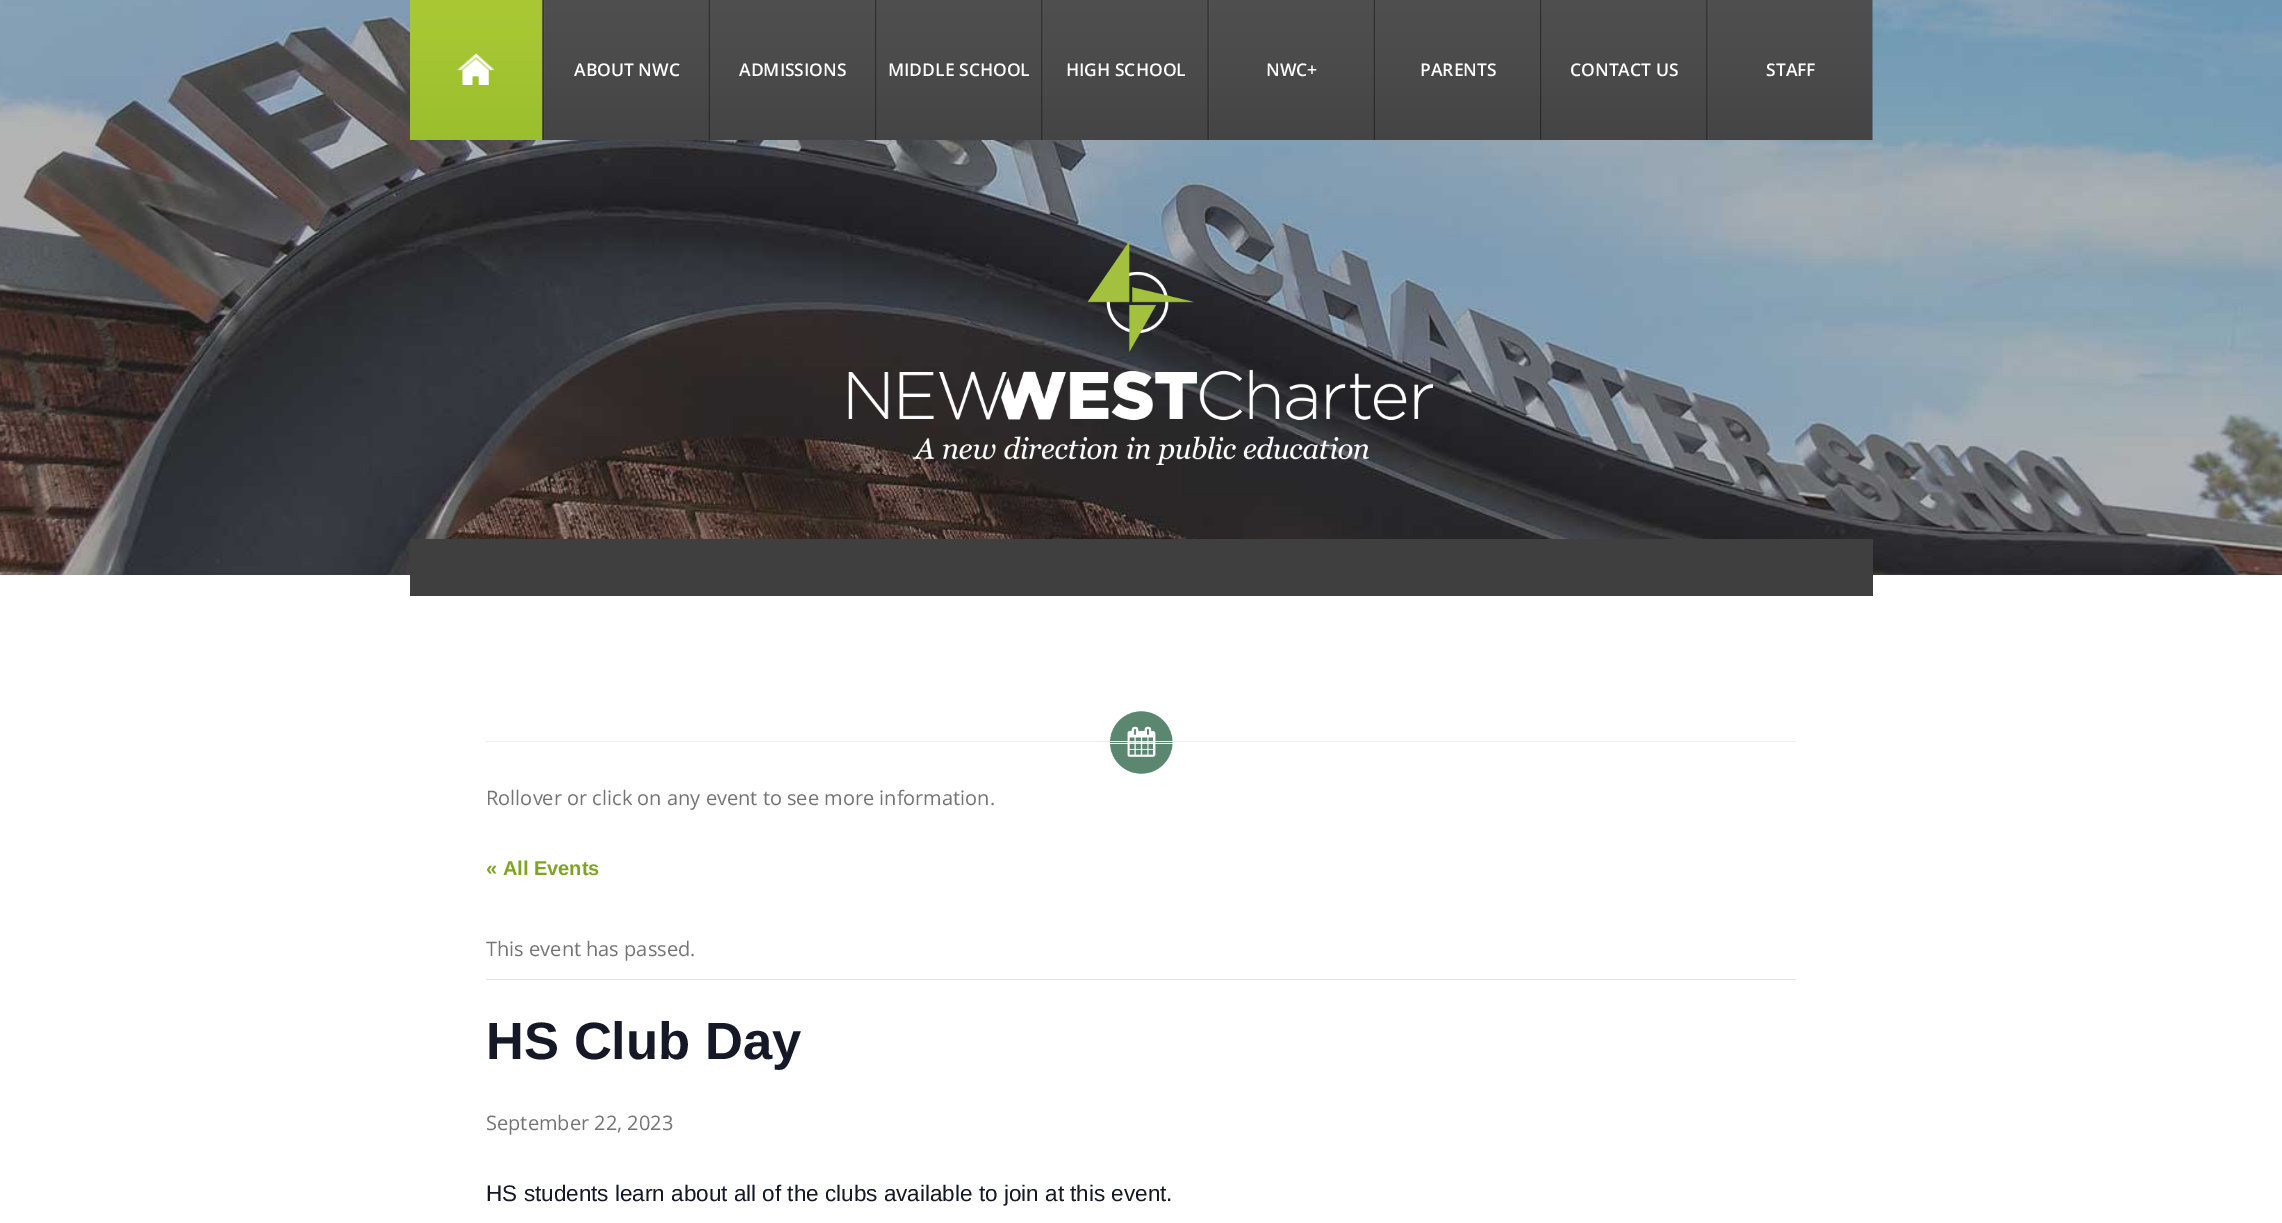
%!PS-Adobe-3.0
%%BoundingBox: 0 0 2282 1223
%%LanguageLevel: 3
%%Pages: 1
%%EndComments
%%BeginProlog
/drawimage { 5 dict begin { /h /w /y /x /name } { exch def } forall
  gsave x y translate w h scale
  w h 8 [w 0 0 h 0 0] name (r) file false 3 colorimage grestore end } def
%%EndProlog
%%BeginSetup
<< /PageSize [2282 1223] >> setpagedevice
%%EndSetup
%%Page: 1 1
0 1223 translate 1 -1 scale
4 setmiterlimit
1 setgray
0 0 2282 1223 rectfill
(images/1.raw) 0 0 2282 575 drawimage
(images/2.raw) 542 0 1331 140 drawimage
(images/3.raw) 410 0 133 140 drawimage
(images/4.raw) 457 53 37 32 drawimage
(images/5.raw) 542 0 3 140 drawimage
(images/6.raw) 708 0 2 140 drawimage
(images/7.raw) 875 0 2 140 drawimage
(images/8.raw) 1041 0 3 140 drawimage
(images/9.raw) 1207 0 3 140 drawimage
(images/6.raw) 1373 0 2 140 drawimage
(images/7.raw) 1540 0 2 140 drawimage
(images/8.raw) 1706 0 3 140 drawimage
(images/10.raw) 848 241 585 224 drawimage
0.247 0.247 0.251 setrgbcolor
410 539 1463 57 rectfill
(images/11.raw) 1110 711 63 63 drawimage
0.933 setgray
486 741 1310 1 rectfill
1 setgray
1110 743 63 1 rectfill
0.894 setgray
486 979 1310 1 rectfill
/OpenSans-SemiBold [17.5 0 0 -17.5 0 0] selectfont
1 setgray
574 76 moveto (ABOUT NWC) show
739 76 moveto (ADMISSIONS) show
888 76 moveto (MIDDLE SCHOOL) show
1066 76 moveto (HIGH SCHOOL) show
1266 76 moveto (NWC+) show
1420 76 moveto (PARENTS) show
1570 76 moveto (CONTACT US) show
1766 76 moveto (STAFF) show
/OpenSans-Regular [20 0 0 -20 0 0] selectfont
0.455 setgray
486 805 moveto (Rollover or click on any event to see more information.) show
/LiberationSans-Bold [20 0 0 -20 0 0] selectfont
0.498 0.643 0.141 setrgbcolor
486 875 moveto (« All Events) show
/OpenSans-Regular [20 0 0 -20 0 0] selectfont
0.455 setgray
486 956 moveto (This event has passed.) show
/LiberationSans-Bold [52.5 0 0 -52.5 0 0] selectfont
0.078 0.094 0.153 setrgbcolor
486 1059 moveto (HS Club Day) show
/OpenSans-Regular [20 0 0 -20 0 0] selectfont
0.455 setgray
486 1130 moveto (September 22, 2023) show
/LiberationSans-Regular [22.5 0 0 -22.5 0 0] selectfont
0.078 0.094 0.153 setrgbcolor
486 1201 moveto (HS students learn about all of the clubs available to join at this event.) show
showpage
%%EOF
